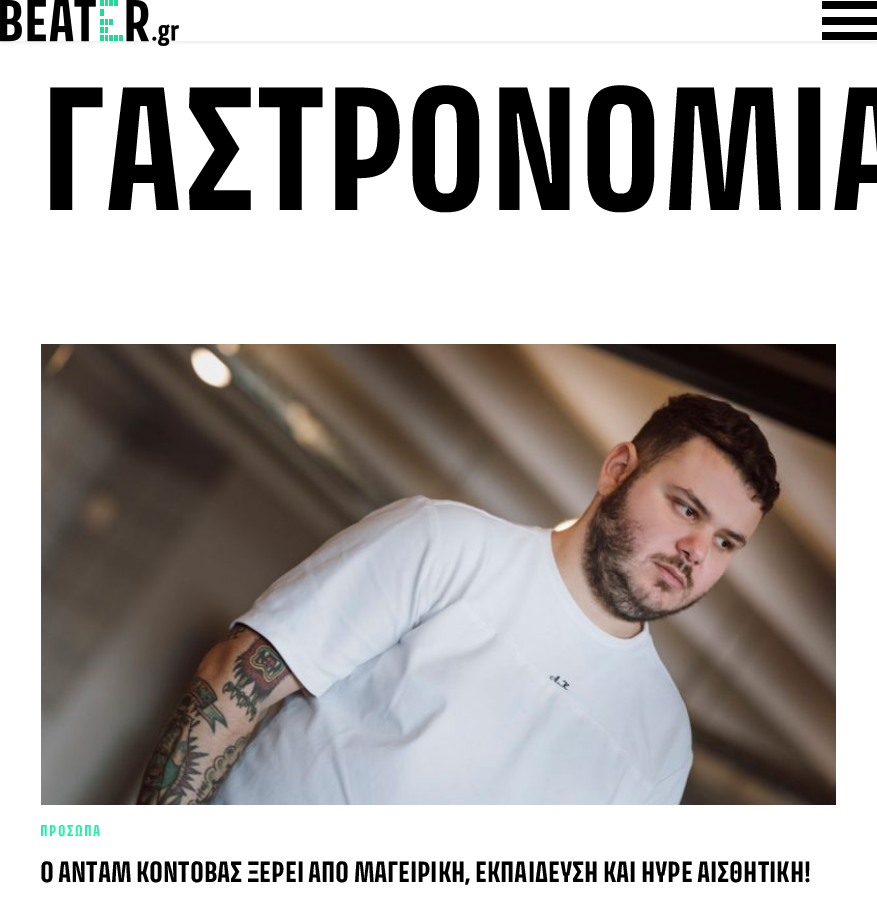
%!PS-Adobe-3.0
%%BoundingBox: 0 0 877 897
%%LanguageLevel: 3
%%Pages: 1
%%EndComments
%%BeginProlog
/setalpha { dup .setfillconstantalpha .setstrokeconstantalpha } def
/rrect { 5 dict begin { /r /h /w /y /x } { exch def } forall
  x r add y moveto x w add y 2 copy h add r arct x w add y h add x 1 index r arct
  x y h add x y r arct x y 2 copy exch w add exch r arct closepath end } def
/softshadow { 12 dict begin { /a /b /q /h /w /y /x } { exch def } forall gsave /was 0 def
  9 -2 -9 { dup b mul 4 div /e exch def 1 sub .425 mul 2.718 exch exp 1 add a .99 .min exch div /now exch def
    1 1 now sub 1 was sub div sub setalpha /was now def
    w h .min e 2 mul add 0 gt { x e sub y e sub w e 2 mul add h e 2 mul add
      q e add b .6 mul add w h .min 2 div e add .min 0 .max rrect fill } if } for grestore end } def
/drawimage { 5 dict begin { /h /w /y /x /name } { exch def } forall
  gsave x y translate w h scale
  w h 8 [w 0 0 h 0 0] name (r) file false 3 colorimage grestore end } def
%%EndProlog
%%BeginSetup
<< /PageSize [877 897] /PageUsesTransparency true >> setpagedevice
%%EndSetup
%%Page: 1 1
0 .pushpdf14devicefilter
0 897 translate 1 -1 scale
4 setmiterlimit
1 setgray
0 0 877 897 rectfill
gsave
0 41 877 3 rectclip
0 setgray
0 2 877 41 0 2 0.07 softshadow
grestore
(images/1.raw) 0 0 179 46 drawimage
0 setgray
822 1 55 8 rectfill
822 17 55 8 rectfill
822 32 55 8 rectfill
(images/2.raw) 41 344 795 461 drawimage
/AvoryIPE-Bold [156.5 0 0 -156.5 0 0] selectfont
40 210 moveto (ΓΑΣΤΡΟΝΟΜΙΑ) show
/AvoryIPE-Bold [14 0 0 -14 0 0] selectfont
0.133 0.949 0.655 setrgbcolor
40 836 moveto 1.5 0 (ΠΡΟΣΩΠΑ) ashow
/AvoryIPE-Bold [26.05 0 0 -26.05 0 0] selectfont
0 setgray
40 882 moveto (O ΑΝΤΑΜ ΚΟΝΤΟΒΑΣ ΞΕΡΕΙ ΑΠΟ ΜΑΓΕΙΡΙΚΗ, ΕΚΠΑΙΔΕΥΣΗ ΚΑΙ HYPE ΑΙΣΘΗΤΙΚΗ!) show
.poppdf14devicefilter showpage
%%EOF
